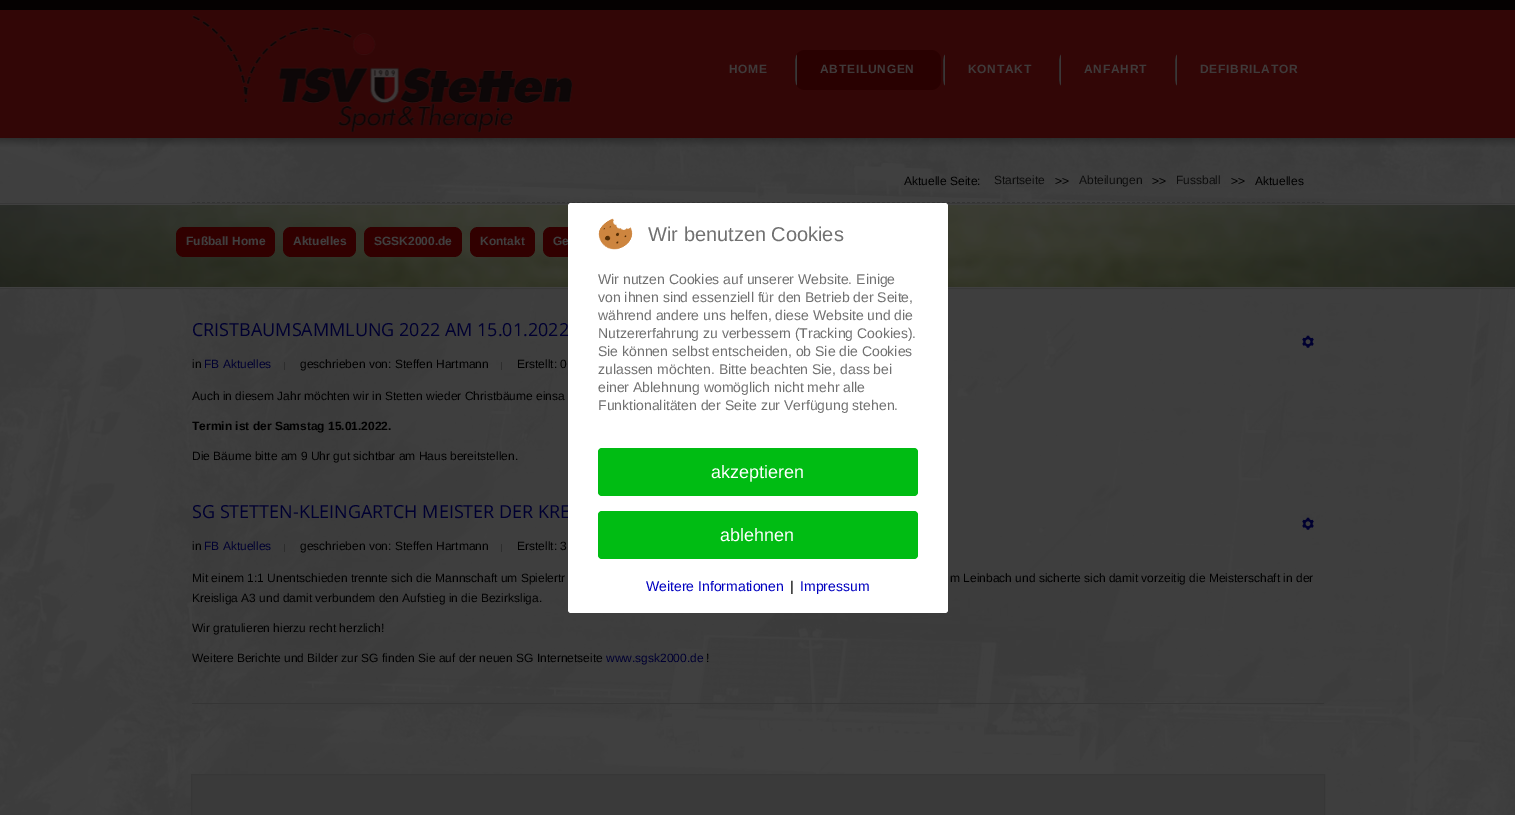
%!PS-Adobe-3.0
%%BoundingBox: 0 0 1515 815
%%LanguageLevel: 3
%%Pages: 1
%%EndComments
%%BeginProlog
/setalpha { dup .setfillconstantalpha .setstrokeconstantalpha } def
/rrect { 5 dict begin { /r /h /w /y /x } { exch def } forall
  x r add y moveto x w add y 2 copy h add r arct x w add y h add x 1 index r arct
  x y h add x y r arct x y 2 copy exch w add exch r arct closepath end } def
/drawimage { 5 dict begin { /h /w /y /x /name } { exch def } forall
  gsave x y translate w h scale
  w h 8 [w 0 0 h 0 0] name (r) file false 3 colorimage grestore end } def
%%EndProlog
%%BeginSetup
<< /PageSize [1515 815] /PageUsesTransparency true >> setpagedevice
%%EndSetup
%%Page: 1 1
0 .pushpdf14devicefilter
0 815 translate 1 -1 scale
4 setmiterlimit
1 setgray
0 0 1515 815 rectfill
(images/1.raw) 0 10 1515 805 drawimage
0.9 setalpha
0.251 setgray
0 10 1515 193 rectfill
0.192 0 0 setrgbcolor
0 10 1515 128 rectfill
1 setalpha
0.02 0.004 0.004 setrgbcolor
0 0 1515 10 rectfill
(images/2.raw) 192 15 380 117 drawimage
0.161 0.004 0.004 setrgbcolor
795 50 146 40 10 rrect fill
(images/3.raw) 795 54 2 32 drawimage
(images/4.raw) 943 54 2 32 drawimage
(images/5.raw) 1059 54 2 32 drawimage
(images/4.raw) 1175 54 2 32 drawimage
(images/6.raw) 0 138 1515 9 drawimage
0.2 setgray
[3 2] 0 setdash
newpath 192 202.5 moveto 1324 202.5 lineto stroke
(images/7.raw) 0 205 1515 82 drawimage
0.22 setgray
0 203 1515 1 rectfill
0 288 1515 1 rectfill
0.251 setgray
0 204 1515 1 rectfill
0 287 1515 1 rectfill
0.192 0 0 setrgbcolor
176 227 99 30 8 rrect fill
283 227 73 30 8 rrect fill
364 227 98 30 8 rrect fill
470 227 65 30 8 rrect fill
543 227 85 30 8 rrect fill
0.9 setalpha
0.251 setgray
0 289 1515 526 rectfill
1 setalpha
0.208 setgray
192 703 1132 1 rectfill
(images/9.raw) 1302 335 12 13 drawimage
0.176 setgray
284 362 1 8 rectfill
501 362 1 8 rectfill
(images/10.raw) 1302 517 12 13 drawimage
284 544 1 8 rectfill
501 544 1 8 rectfill
0.227 setgray
newpath 191.5 774.5 moveto 1324.5 774.5 lineto 1324.5 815.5 lineto 191.5 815.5 lineto closepath gsave fill grestore
0.216 setgray
[] 0 setdash
stroke
/LiberationSans-Bold [12 0 0 -12 0 0] selectfont
0.247 0.227 0.227 setrgbcolor
729 73 moveto 0.75 0 (HOME) ashow
820 73 moveto 0.75 0 (ABTEILUNGEN) ashow
968 73 moveto 0.75 0 (KONTAKT) ashow
1084 73 moveto 0.75 0 (ANFAHRT) ashow
1200 73 moveto 0.75 0 (DEFIBRILATOR) ashow
/LiberationSans-Regular [12 0 0 -12 0 0] selectfont
0 setgray
904 185 moveto (Aktuelle Seite:) show
0.051 setgray
994 184 moveto (Startseite) show
0 setgray
1055 185 moveto (>>) show
0.051 setgray
1079 184 moveto (Abteilungen) show
0 setgray
1152 185 moveto (>>) show
0.051 setgray
1176 184 moveto (Fussball) show
0 setgray
1231 185 moveto (>>) show
1255 185 moveto (Aktuelles) show
/LiberationSans-Bold [12 0 0 -12 0 0] selectfont
0.251 setgray
186 245 moveto (Fußball Home) show
293 245 moveto (Aktuelles) show
374 245 moveto (SGSK2000.de) show
480 245 moveto (Kontakt) show
553 245 moveto (Ge) show
/OpenSans-Regular [18 0 0 -18 0 0] selectfont
0 0 0.188 setrgbcolor
192 336 moveto (CRISTBAUMSAMMLUNG 2022 AM 15.01.2022) show
/LiberationSans-Regular [12 0 0 -12 0 0] selectfont
0 setgray
192 368 moveto (in) show
0 0 0.188 setrgbcolor
204 368 moveto (FB Aktuelles) show
0 setgray
300 368 moveto (geschrieben von: Steffen Hartmann) show
517 368 moveto (Erstellt: 0) show
192 400 moveto (Auch in diesem Jahr möchten wir in Stetten wieder Christbäume einsa) show
/LiberationSans-Bold [12 0 0 -12 0 0] selectfont
192 430 moveto (Termin ist der Samstag 15.01.2022.) show
/LiberationSans-Regular [12 0 0 -12 0 0] selectfont
192 460 moveto (Die Bäume bitte am 9 Uhr gut sichtbar am Haus bereitstellen.) show
/OpenSans-Regular [18 0 0 -18 0 0] selectfont
0 0 0.188 setrgbcolor
192 518 moveto (SG STETTEN-KLEINGARTCH MEISTER DER KRE) show
1 setgray
568 203 380 410 3 rrect fill
(images/8.raw) 598 218 35 32 drawimage
/LiberationSans-Regular [20 0 0 -20 0 0] selectfont
0.439 setgray
648 241 moveto (Wir benutzen Cookies) show
/LiberationSans-Regular [14 0 0 -14 0 0] selectfont
0 0 0.753 setrgbcolor
800 591 moveto (Impressum) show
0 setgray
790 591 moveto (|) show
0 0 0.753 setrgbcolor
646 591 moveto (Weitere Informationen) show
0 0.737 0.075 setrgbcolor
598 511 320 48 4 rrect fill
/LiberationSans-Regular [18 0 0 -18 0 0] selectfont
1 setgray
720 541 moveto (ablehnen) show
0 0.737 0.075 setrgbcolor
598 448 320 48 4 rrect fill
1 setgray
711 478 moveto (akzeptieren) show
/LiberationSans-Regular [14 0 0 -14 0 0] selectfont
0.439 setgray
598 410 moveto (Funktionalitäten der Seite zur Verfügung stehen.) show
598 392 moveto (einer Ablehnung womöglich nicht mehr alle) show
598 374 moveto (zulassen möchten. Bitte beachten Sie, dass bei) show
598 356 moveto (Sie können selbst entscheiden, ob Sie die Cookies) show
598 338 moveto (Nutzererfahrung zu verbessern \(Tracking Cookies\).) show
598 320 moveto (während andere uns helfen, diese Website und die) show
598 302 moveto (von ihnen sind essenziell für den Betrieb der Seite,) show
598 284 moveto (Wir nutzen Cookies auf unserer Website. Einige) show
/LiberationSans-Regular [12 0 0 -12 0 0] selectfont
0 setgray
192 550 moveto (in) show
0 0 0.188 setrgbcolor
204 550 moveto (FB Aktuelles) show
0 setgray
300 550 moveto (geschrieben von: Steffen Hartmann) show
517 550 moveto (Erstellt: 3) show
192 582 moveto (Mit einem 1:1 Unentschieden trennte sich die Mannschaft um Spielertr) show
950 582 moveto (m Leinbach und sicherte sich damit vorzeitig die Meisterschaft in der) show
192 602 moveto (Kreisliga A3 und damit verbundem den Aufstieg in die Bezirksliga.) show
192 632 moveto (Wir gratulieren hierzu recht herzlich!) show
192 662 moveto (Weitere Berichte und Bilder zur SG finden Sie auf der neuen SG Internetseite) show
0 0 0.188 setrgbcolor
606 662 moveto (www.sgsk2000.de) show
0 setgray
706 662 moveto (!) show
.poppdf14devicefilter showpage
%%EOF
